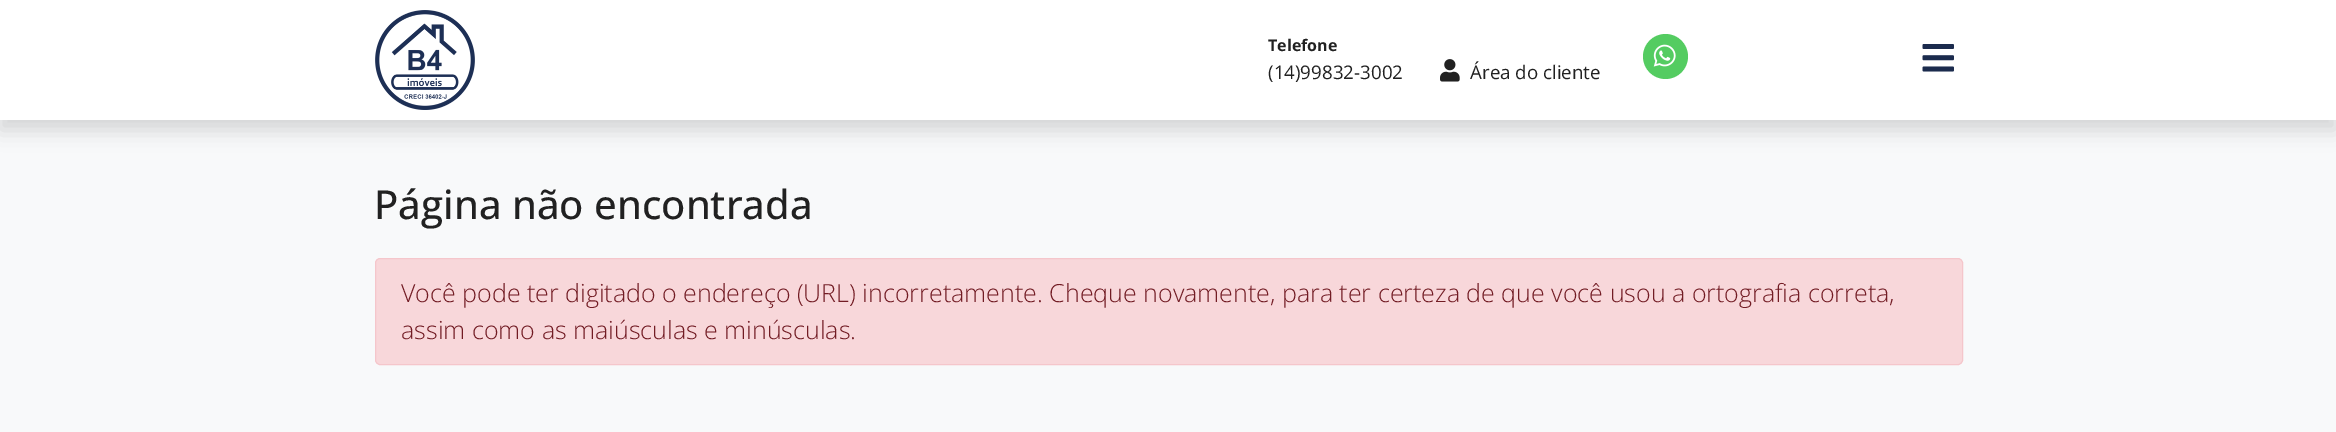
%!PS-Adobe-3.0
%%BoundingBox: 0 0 2336 432
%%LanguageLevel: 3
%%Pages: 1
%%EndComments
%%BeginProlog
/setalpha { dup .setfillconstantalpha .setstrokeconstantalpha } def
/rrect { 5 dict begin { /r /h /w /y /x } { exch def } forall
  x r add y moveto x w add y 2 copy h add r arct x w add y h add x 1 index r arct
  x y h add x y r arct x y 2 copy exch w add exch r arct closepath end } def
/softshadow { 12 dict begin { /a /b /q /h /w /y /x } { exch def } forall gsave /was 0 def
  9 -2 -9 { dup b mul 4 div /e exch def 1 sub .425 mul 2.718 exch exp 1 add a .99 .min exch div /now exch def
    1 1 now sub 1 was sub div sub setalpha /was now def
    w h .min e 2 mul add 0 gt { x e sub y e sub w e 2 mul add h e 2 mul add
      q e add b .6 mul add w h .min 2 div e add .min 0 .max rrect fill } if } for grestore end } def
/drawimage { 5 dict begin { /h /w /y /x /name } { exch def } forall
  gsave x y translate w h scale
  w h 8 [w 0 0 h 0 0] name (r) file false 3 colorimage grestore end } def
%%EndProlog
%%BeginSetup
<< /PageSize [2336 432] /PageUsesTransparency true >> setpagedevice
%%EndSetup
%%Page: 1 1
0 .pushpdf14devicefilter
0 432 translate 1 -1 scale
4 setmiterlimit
0.973 0.976 0.98 setrgbcolor
0 0 2336 432 rectfill
0 setgray
0 10 2336 120 0 10 0.15 softshadow
1 setgray
0 0 2336 120 rectfill
(images/1.raw) 375 10 100 100 drawimage
(images/2.raw) 1440 59 20 23 drawimage
0.329 0.8 0.38 setrgbcolor
newpath 1665.5 56.5 22.5 0 360 arc closepath fill
(images/3.raw) 1653 44 23 23 drawimage
(images/4.raw) 1922 44 32 28 drawimage
0.973 0.843 0.855 setrgbcolor
375.5 258.5 1587 106 4.5 rrect gsave fill grestore
0.961 0.776 0.796 setrgbcolor
stroke
/OpenSans-Bold [16 0 0 -16 0 0] selectfont
0.129 setgray
1268 51 moveto (Telefone) show
/OpenSans-Regular [18.75 0 0 -18.75 0 0] selectfont
1268 79 moveto (\(14\)99832-3002) show
1470 79 moveto (Área do cliente) show
/OpenSans-Medium [40 0 0 -40 0 0] selectfont
374 219 moveto (Página não encontrada) show
/OpenSans-Light [25 0 0 -25 0 0] selectfont
0.447 0.11 0.141 setrgbcolor
401 302 moveto (Você pode ter digitado o endereço \(URL\) incorretamente. Cheque novamente, para ter certeza de que você usou a ortografia correta,) show
401 339 moveto (assim como as maiúsculas e minúsculas.) show
.poppdf14devicefilter showpage
%%EOF
